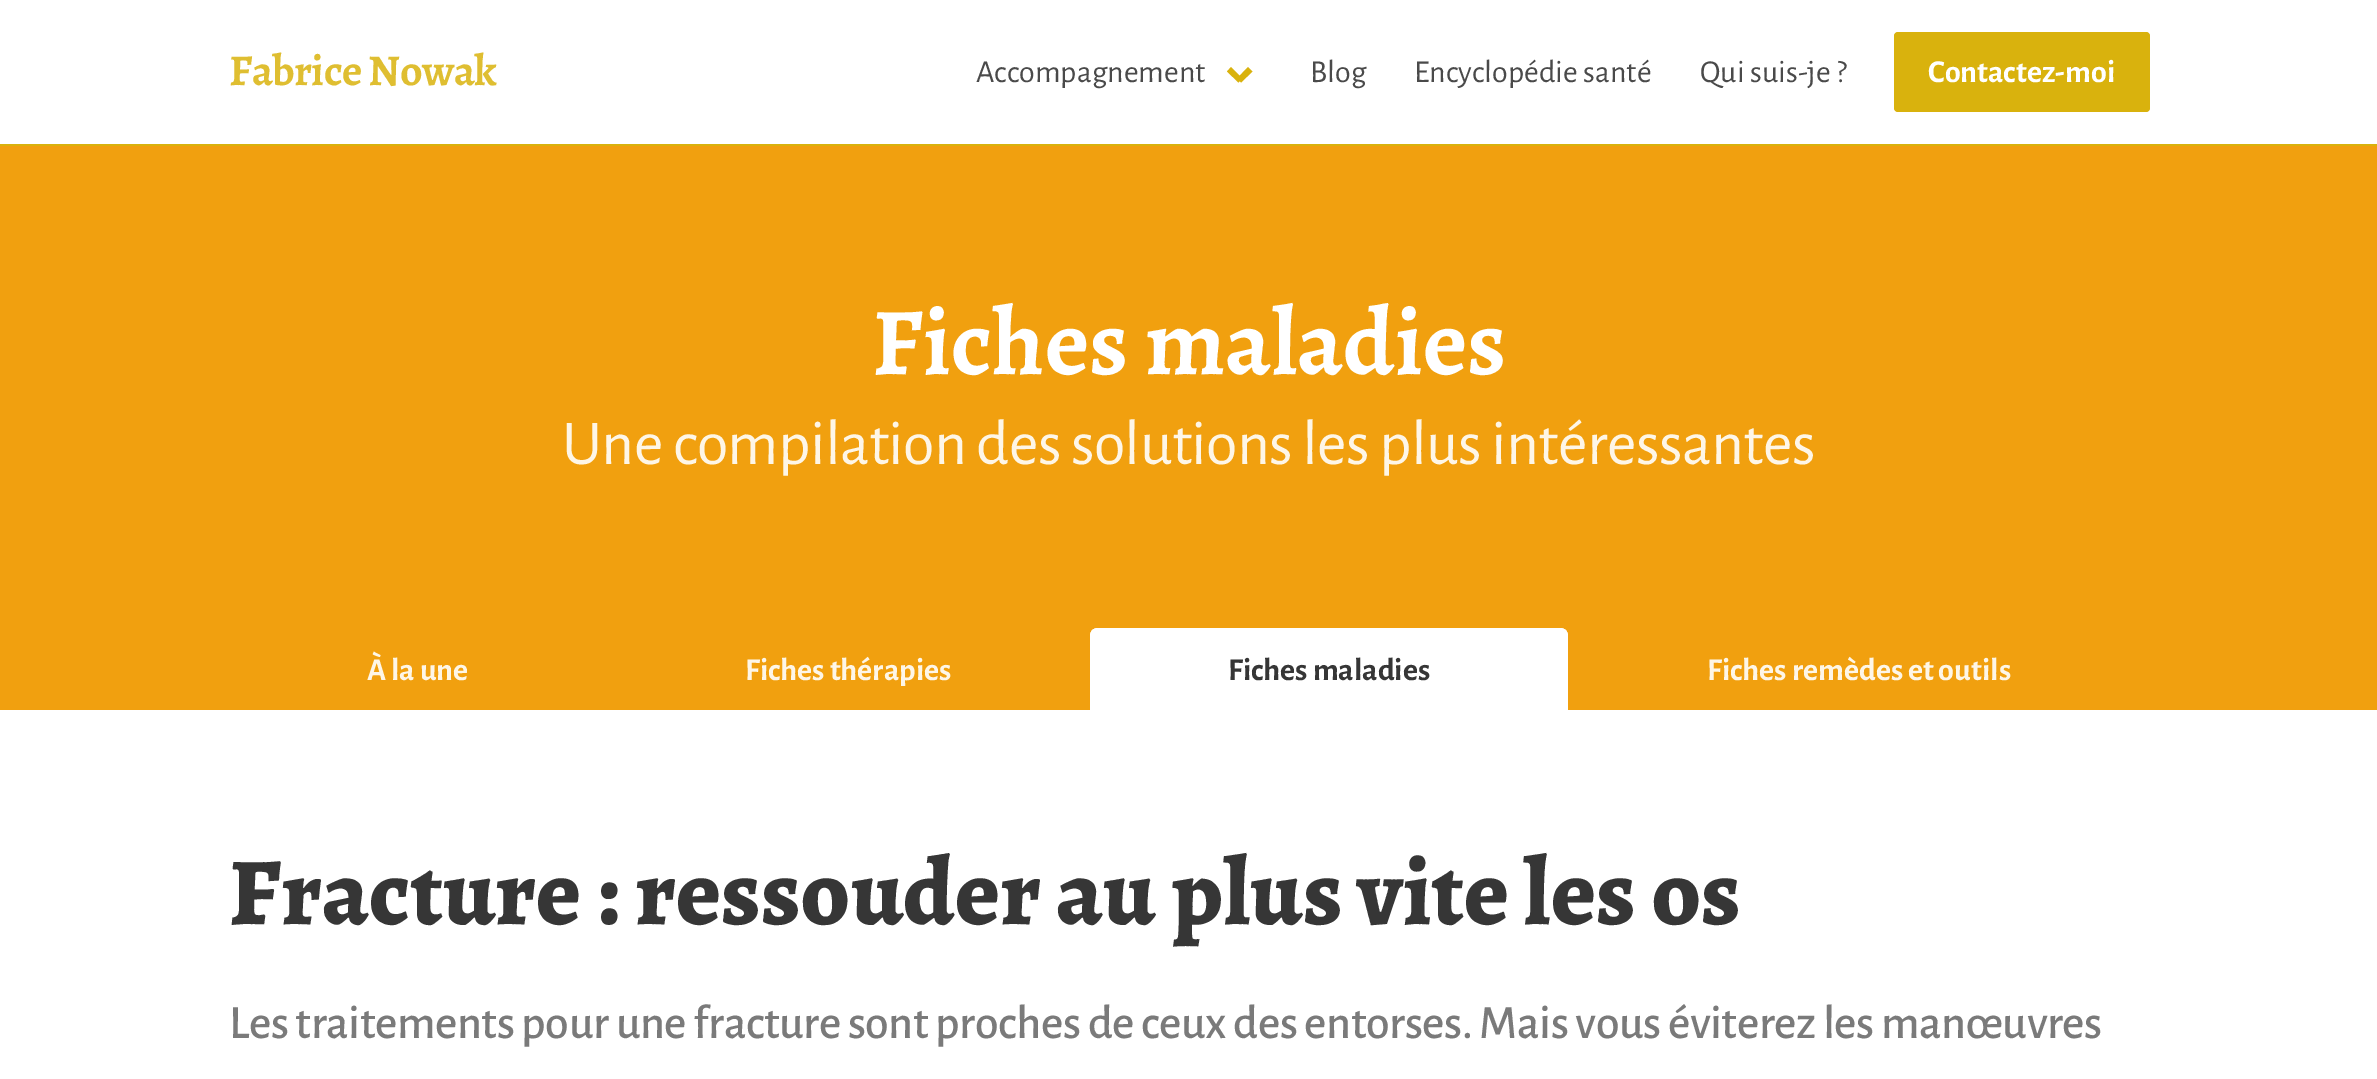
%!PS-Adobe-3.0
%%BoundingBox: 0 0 2377 1079
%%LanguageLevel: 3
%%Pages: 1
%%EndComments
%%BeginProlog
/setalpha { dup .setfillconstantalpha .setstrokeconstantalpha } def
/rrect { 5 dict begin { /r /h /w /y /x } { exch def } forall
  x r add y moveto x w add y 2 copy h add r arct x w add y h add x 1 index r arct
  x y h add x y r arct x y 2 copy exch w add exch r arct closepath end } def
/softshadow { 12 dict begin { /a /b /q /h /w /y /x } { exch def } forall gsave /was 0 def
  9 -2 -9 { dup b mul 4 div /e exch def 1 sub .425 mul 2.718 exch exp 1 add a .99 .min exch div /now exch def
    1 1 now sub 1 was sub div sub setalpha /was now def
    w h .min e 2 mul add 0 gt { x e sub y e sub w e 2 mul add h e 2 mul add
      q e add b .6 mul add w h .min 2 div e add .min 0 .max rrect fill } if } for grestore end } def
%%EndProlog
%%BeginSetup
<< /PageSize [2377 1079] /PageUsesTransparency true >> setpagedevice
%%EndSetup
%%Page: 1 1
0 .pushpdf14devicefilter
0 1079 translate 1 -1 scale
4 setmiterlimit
1 setgray
0 0 2377 1079 rectfill
0.945 0.627 0.059 setrgbcolor
0 146 2377 564 rectfill
0.851 0.698 0.051 setrgbcolor
0 4 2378 146 0 4 0.1 softshadow
1 setgray
0 0 2377 144 rectfill
0.851 0.698 0.051 setrgbcolor
0 144 2377 2 rectfill
newpath 1237 78.5 moveto 1248 67 lineto 1252.5 71.5 lineto 1241 82.5 lineto closepath fill
newpath 1227 71.5 moveto 1231 67 lineto 1242.5 78.5 lineto 1238.5 82.5 lineto closepath fill
1894 32 256 80 4 rrect fill
1 setgray
newpath 1098 628 moveto 1560 628 lineto 1564.5 628 1568 631.5 1568 636 curveto 1568 710 lineto 1090 710 lineto 1090 636 lineto 1090 631.5 1093.5 628 1098 628 curveto closepath fill
newpath 1098 628 moveto 1096 628 1094 629 1092 630 curveto 1094 632 lineto 1095 631 1096 630 1098 630 curveto 1560 630 lineto 1562 630 1563 631 1564 632 curveto 1566 630 lineto 1564 629 1562 628 1560 628 curveto closepath fill
gsave
230 628 1920 82 rectclip
newpath 1568 712 moveto 1568 636 lineto 1568 634 1567 632 1566 630 curveto 1564 632 lineto 1566 635 lineto 1566 710 lineto closepath fill
newpath 1090 712 moveto 1092 710 lineto 1092 635 lineto 1094 632 lineto 1092 630 lineto 1091 632 1090 634 1090 636 curveto closepath fill
grestore
/Alegreya-Bold [44 0 0 -44 0 0] selectfont
0.875 0.745 0.192 setrgbcolor
229 85 moveto -0.7 0 (Fabrice Nowak) ashow
/AlegreyaSans-Regular [32 0 0 -32 0 0] selectfont
0.29 setgray
976 82 moveto (Accompagnement) show
1310 82 moveto (Blog) show
1414 82 moveto (Encyclopédie santé) show
1700 82 moveto (Qui suis-je ?) show
/AlegreyaSans-Bold [32 0 0 -32 0 0] selectfont
1 setgray
1928 82 moveto (Contactez-moi) show
/Alegreya-Bold [96 0 0 -96 0 0] selectfont
872 374 moveto (Fiches maladies) show
/AlegreyaSans-Regular [64 0 0 -64 0 0] selectfont
0.996 0.965 0.906 setrgbcolor
562 464 moveto -0.65 0 (Une compilation des solutions les plus intéressantes) ashow
/AlegreyaSans-Bold [32 0 0 -32 0 0] selectfont
367 680 moveto (À la une) show
745 680 moveto (Fiches thérapies) show
0.212 setgray
1228 680 moveto (Fiches maladies) show
0.996 0.965 0.906 setrgbcolor
1707 680 moveto (Fiches remèdes et outils) show
/Alegreya-ExtraBold [96 0 0 -96 0 0] selectfont
0.212 setgray
229 924 moveto (Fracture : ressouder au plus vite les os) show
/AlegreyaSans-Medium [48 0 0 -48 0 0] selectfont
0.478 setgray
229 1038 moveto -0.48 0 (Les traitements pour une fracture sont proches de ceux des entorses. Mais vous éviterez les manœuvres) ashow
.poppdf14devicefilter showpage
%%EOF
